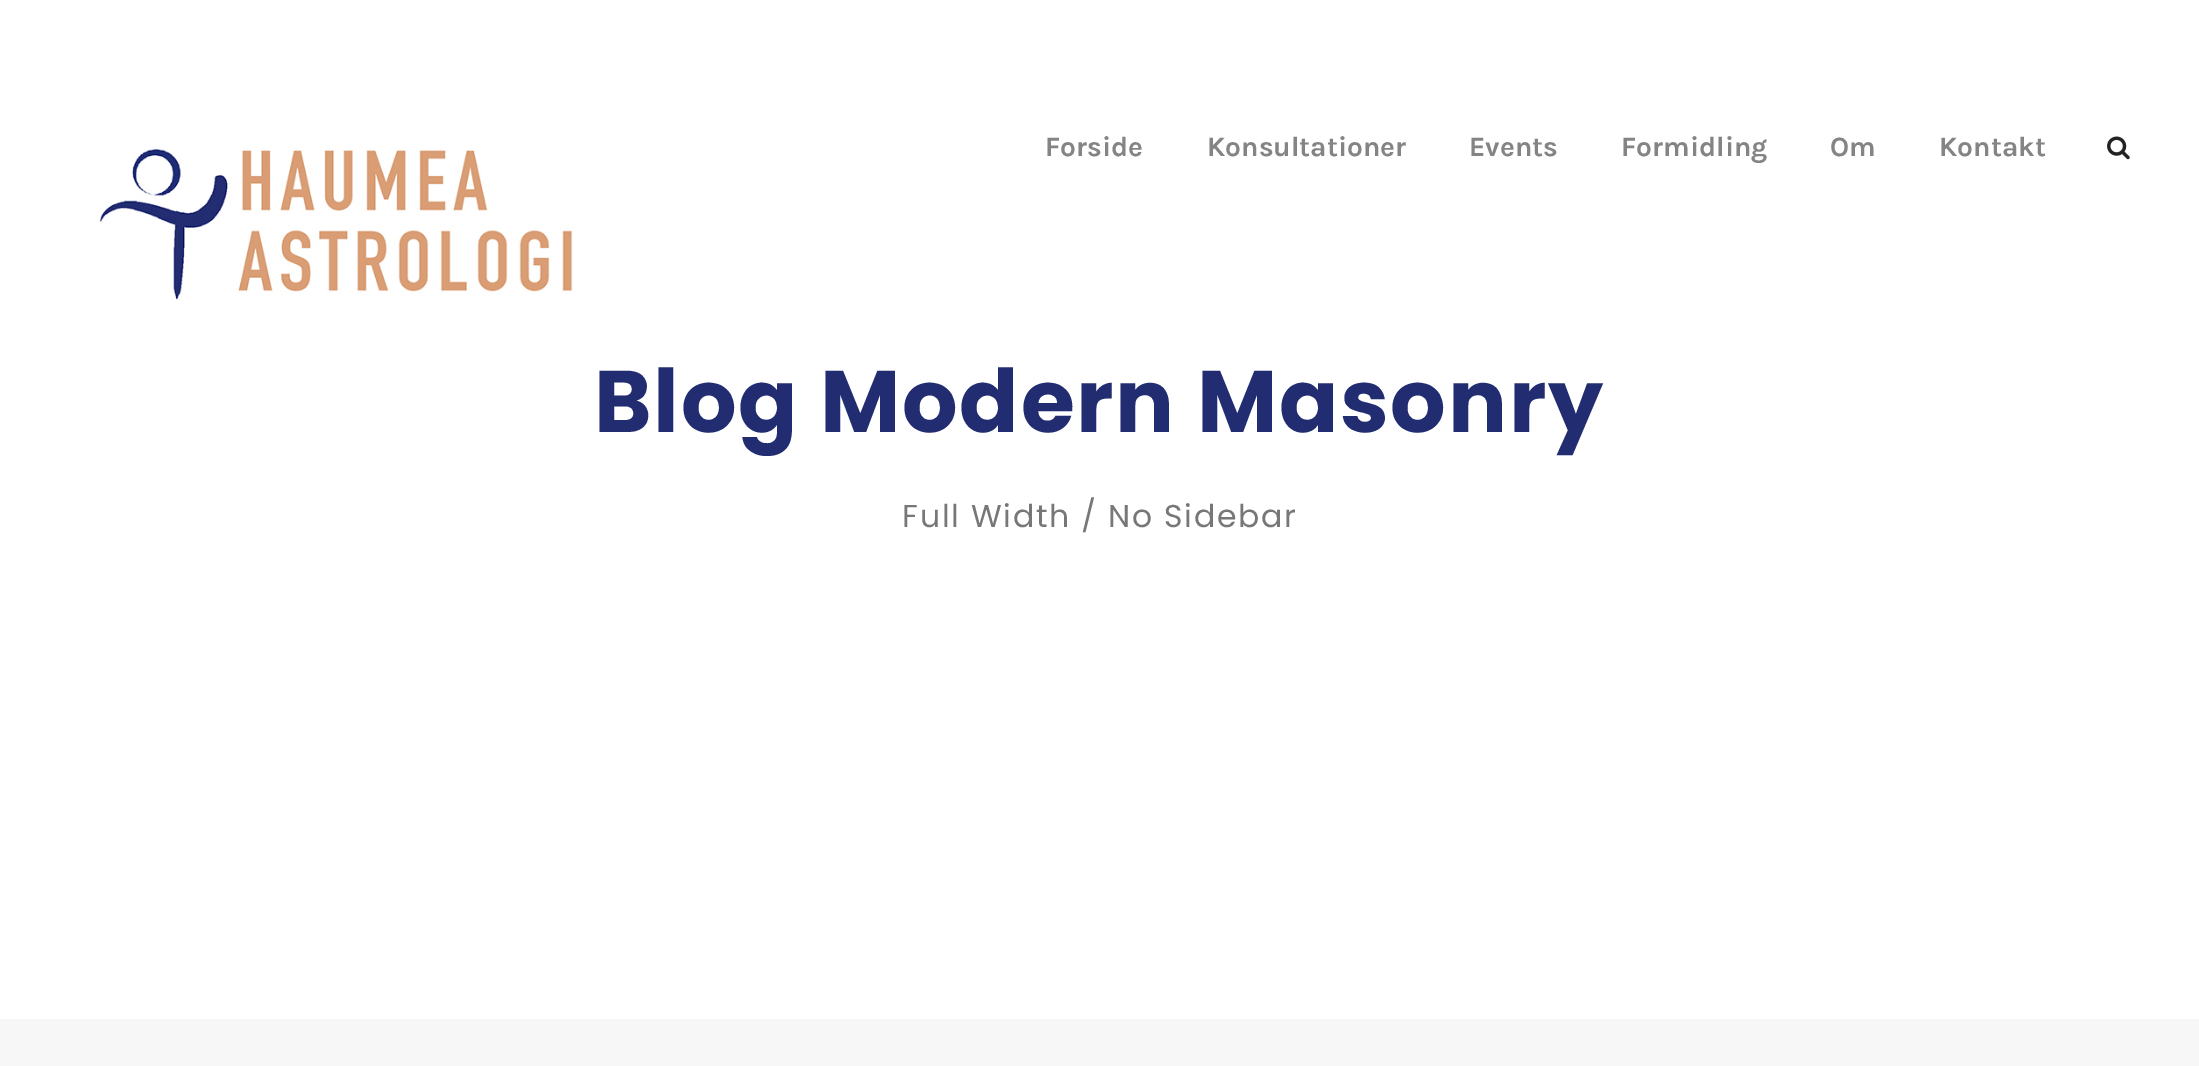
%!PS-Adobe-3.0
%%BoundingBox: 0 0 2199 1066
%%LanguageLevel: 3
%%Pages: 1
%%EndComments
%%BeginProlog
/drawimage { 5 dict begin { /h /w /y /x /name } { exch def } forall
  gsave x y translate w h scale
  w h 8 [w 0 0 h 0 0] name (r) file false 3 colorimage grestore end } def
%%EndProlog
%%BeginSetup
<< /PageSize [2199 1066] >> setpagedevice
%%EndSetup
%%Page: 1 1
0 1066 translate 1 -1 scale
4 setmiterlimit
1 setgray
0 0 2199 1066 rectfill
(images/1.raw) 99 148 474 152 drawimage
(images/2.raw) 2107 136 23 24 drawimage
0.969 setgray
0 1019 2199 47 rectfill
/Karla-Bold [28 0 0 -28 0 0] selectfont
0.518 setgray
1045 156 moveto (Forside) show
1207 156 moveto (Konsultationer) show
1469 156 moveto (Events) show
1621 156 moveto (Formidling) show
1830 156 moveto (Om) show
1939 156 moveto (Kontakt) show
/Poppins-Bold [87.5 0 0 -87.5 0 0] selectfont
0.133 0.176 0.443 setrgbcolor
594 432 moveto 1.75 0 (Blog Modern Masonry) ashow
/Poppins-Regular [31.5 0 0 -31.5 0 0] selectfont
0.467 setgray
902 527 moveto 1.75 0 (Full Width / No Sidebar) ashow
showpage
%%EOF
